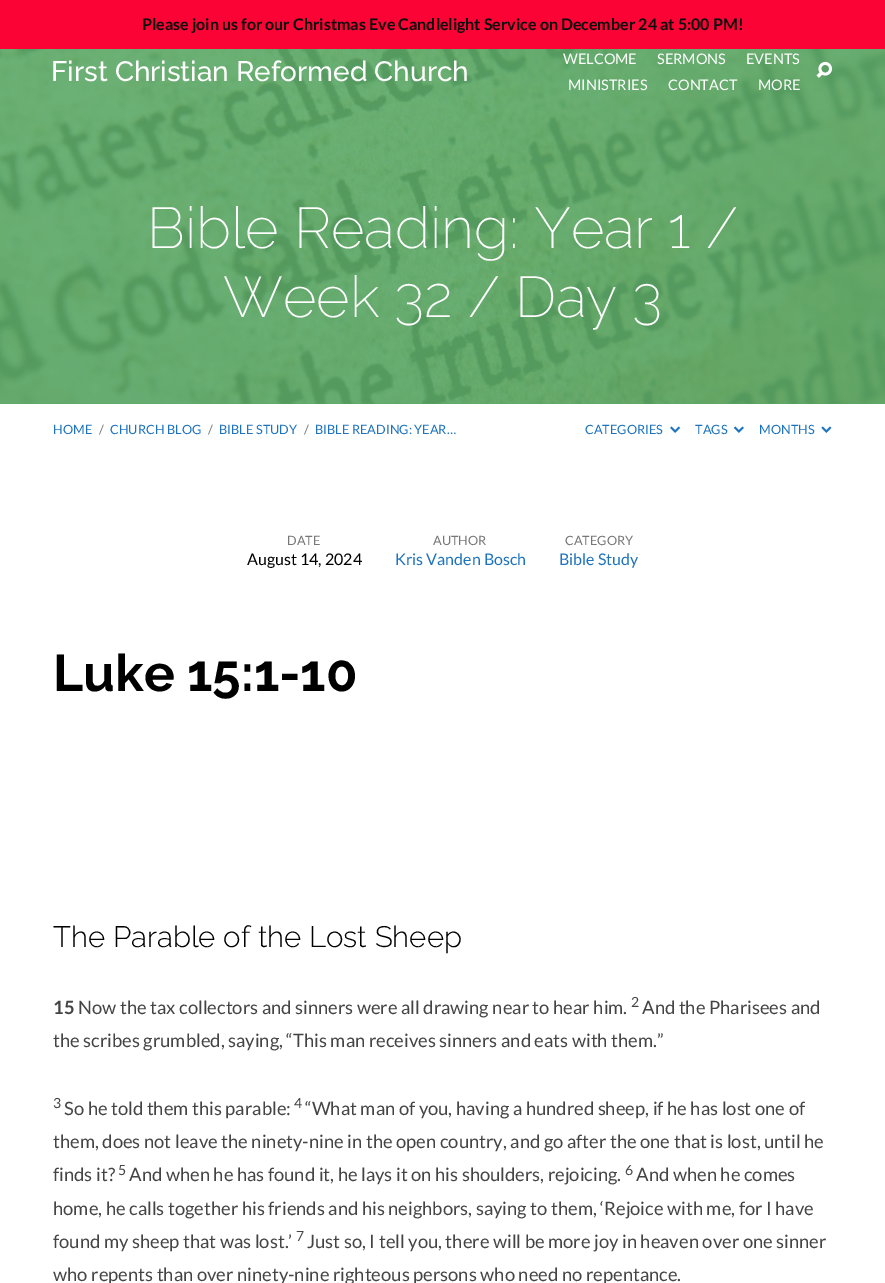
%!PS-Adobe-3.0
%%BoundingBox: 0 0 885 1283
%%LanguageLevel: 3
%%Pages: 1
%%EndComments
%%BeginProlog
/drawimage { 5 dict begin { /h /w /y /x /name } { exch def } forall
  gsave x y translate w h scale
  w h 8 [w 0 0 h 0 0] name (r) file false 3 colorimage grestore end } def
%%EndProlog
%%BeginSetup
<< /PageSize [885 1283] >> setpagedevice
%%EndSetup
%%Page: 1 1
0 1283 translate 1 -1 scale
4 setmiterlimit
1 setgray
0 0 885 1283 rectfill
0.984 0.016 0.208 setrgbcolor
0 0 885 49 rectfill
0.365 0.667 0.408 setrgbcolor
0 49 885 355 rectfill
(images/2.raw) 0 49 885 355 drawimage
(images/1.raw) 816 61 17 17 drawimage
(images/3.raw) 670 426 11 7 drawimage
(images/4.raw) 733 426 11 7 drawimage
(images/5.raw) 821 426 11 7 drawimage
/Lato-Bold [16 0 0 -16 0 0] selectfont
0.047 0.051 0.051 setrgbcolor
142 30 moveto (Please join us for our Christmas Eve Candlelight Service on December 24 at 5:00 PM!) show
/Raleway-Medium [28 0 0 -28 0 0] selectfont
1 setgray
51 81 moveto (First Christian Reformed Church) show
/Lato-Regular [14.5 0 0 -14.5 0 0] selectfont
563 64 moveto (WELCOME) show
657 64 moveto (SERMONS) show
746 64 moveto (EVENTS) show
568 90 moveto (MINISTRIES) show
668 90 moveto (CONTACT) show
758 90 moveto (MORE) show
/Raleway-ExtraLight [57.6 0 0 -57.6 0 0] selectfont
147 248 moveto (Bible Reading: Year 1 /) show
223 317 moveto (Week 32 / Day 3) show
/Lato-Regular [12.75 0 0 -12.75 0 0] selectfont
0.118 0.451 0.745 setrgbcolor
53 434 moveto (HOME) show
0.467 setgray
99 434 moveto (/) show
0.118 0.451 0.745 setrgbcolor
110 434 moveto (CHURCH BLOG) show
0.467 setgray
208 434 moveto (/) show
0.118 0.451 0.745 setrgbcolor
219 434 moveto (BIBLE STUDY) show
0.467 setgray
304 434 moveto (/) show
0.118 0.451 0.745 setrgbcolor
315 434 moveto (BIBLE READING: YEAR…) show
585 434 moveto (CATEGORIES) show
695 434 moveto (TAGS) show
759 434 moveto (MONTHS) show
0.467 setgray
287 545 moveto (DATE) show
/Lato-Regular [16 0 0 -16 0 0] selectfont
0 setgray
247 565 moveto (August 14, 2024) show
/Lato-Regular [12.75 0 0 -12.75 0 0] selectfont
0.467 setgray
433 545 moveto (AUTHOR) show
/Lato-Regular [16 0 0 -16 0 0] selectfont
0.118 0.451 0.745 setrgbcolor
395 565 moveto (Kris Vanden Bosch) show
/Lato-Regular [12.75 0 0 -12.75 0 0] selectfont
0.467 setgray
565 545 moveto (CATEGORY) show
/Lato-Regular [16 0 0 -16 0 0] selectfont
0.118 0.451 0.745 setrgbcolor
559 565 moveto (Bible Study) show
/Raleway-Bold [51.5 0 0 -51.5 0 0] selectfont
0 setgray
53 691 moveto (Luke 15:1-10) show
/Raleway-Light [29.5 0 0 -29.5 0 0] selectfont
53 947 moveto (The Parable of the Lost Sheep) show
/Lato-Bold [18.4 0 0 -18.4 0 0] selectfont
0.267 setgray
53 1014 moveto (15) show
/Lato-Regular [18.4 0 0 -18.4 0 0] selectfont
78 1014 moveto (Now the tax collectors and sinners were all drawing near to hear him.) show
/Lato-Regular [14 0 0 -14 0 0] selectfont
631 1007 moveto (2) show
/Lato-Regular [18.4 0 0 -18.4 0 0] selectfont
642 1014 moveto (And the Pharisees and) show
53 1047 moveto (the scribes grumbled, saying, “This man receives sinners and eats with them.”) show
/Lato-Regular [14 0 0 -14 0 0] selectfont
53 1108 moveto (3) show
/Lato-Regular [18.4 0 0 -18.4 0 0] selectfont
64 1115 moveto (So he told them this parable:) show
/Lato-Regular [14 0 0 -14 0 0] selectfont
294 1108 moveto (4) show
/Lato-Regular [18.4 0 0 -18.4 0 0] selectfont
305 1115 moveto (“What man of you, having a hundred sheep, if he has lost one of) show
53 1148 moveto (them, does not leave the ninety-nine in the open country, and go after the one that is lost, until he) show
53 1181 moveto (finds it?) show
/Lato-Regular [14 0 0 -14 0 0] selectfont
118 1175 moveto (5) show
/Lato-Regular [18.4 0 0 -18.4 0 0] selectfont
129 1181 moveto (And when he has found it, he lays it on his shoulders, rejoicing.) show
/Lato-Regular [14 0 0 -14 0 0] selectfont
625 1175 moveto (6) show
/Lato-Regular [18.4 0 0 -18.4 0 0] selectfont
636 1181 moveto (And when he comes) show
53 1215 moveto (home, he calls together his friends and his neighbors, saying to them, ‘Rejoice with me, for I have) show
53 1248 moveto (found my sheep that was lost.’) show
/Lato-Regular [14 0 0 -14 0 0] selectfont
296 1241 moveto (7) show
/Lato-Regular [18.4 0 0 -18.4 0 0] selectfont
307 1248 moveto (Just so, I tell you, there will be more joy in heaven over one sinner) show
53 1281 moveto (who repents than over ninety-nine righteous persons who need no repentance.) show
showpage
%%EOF
